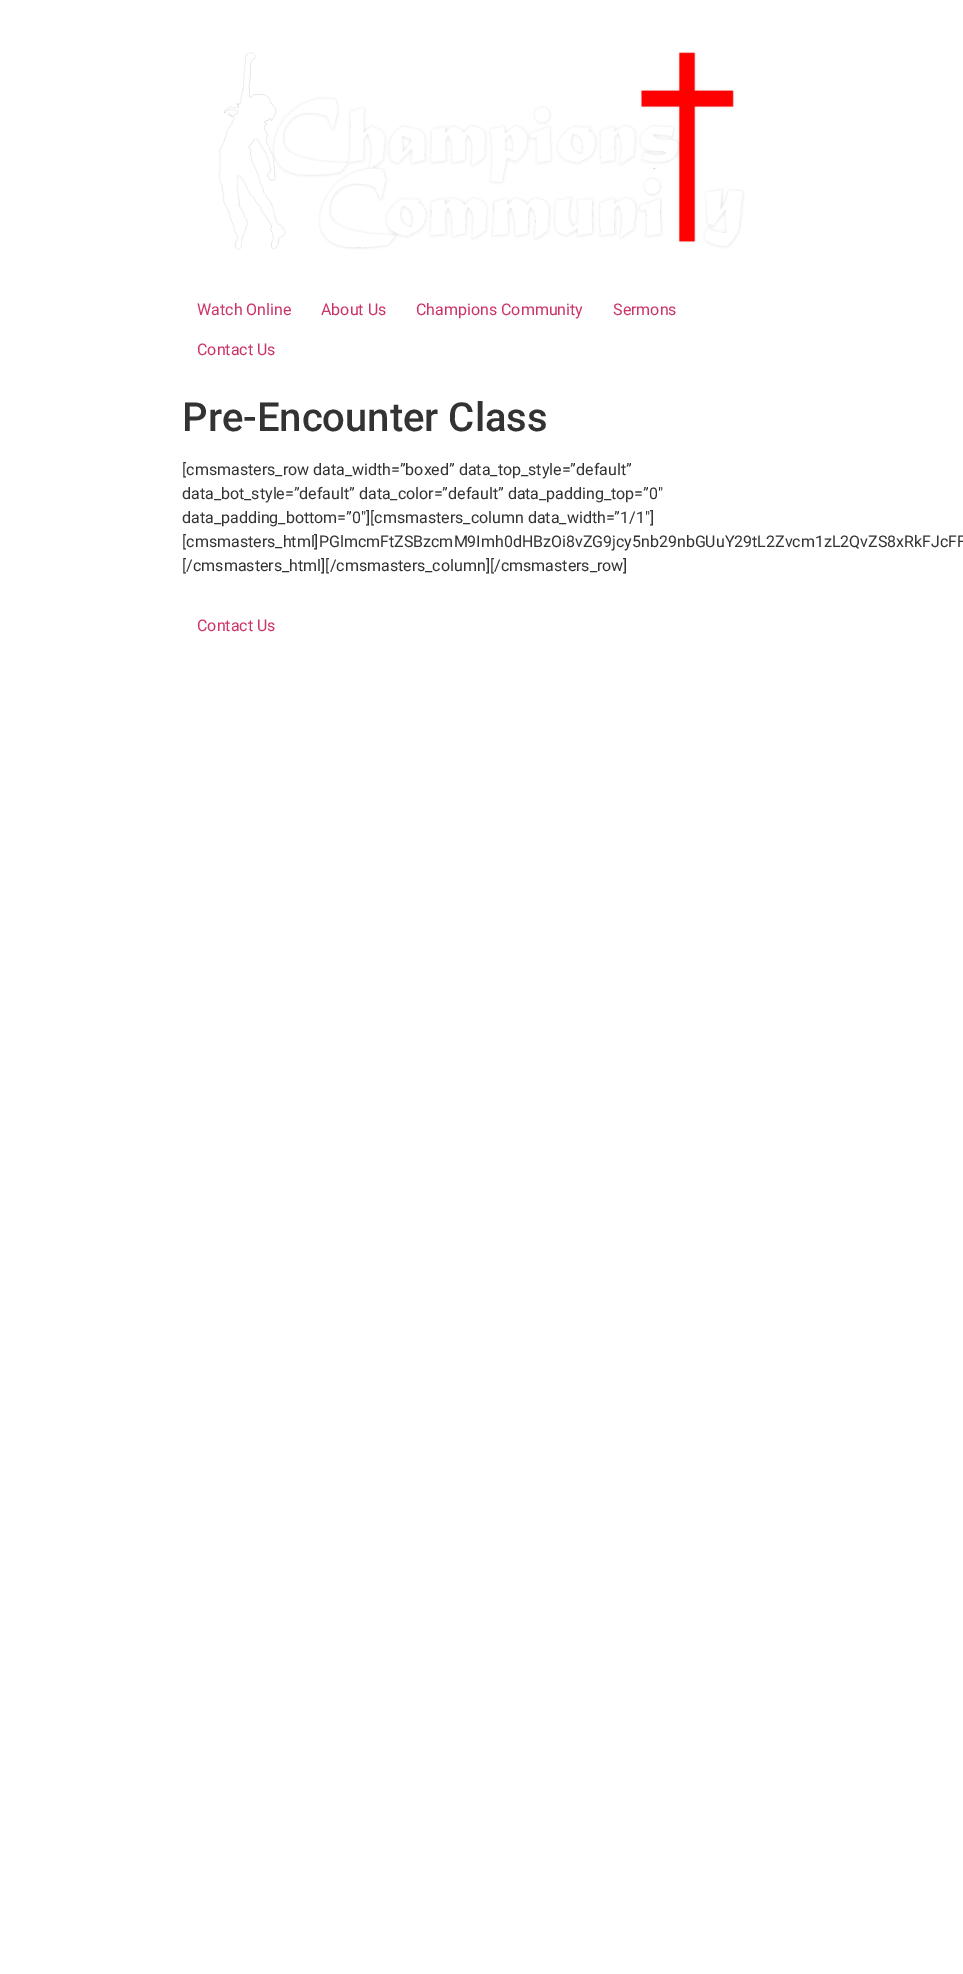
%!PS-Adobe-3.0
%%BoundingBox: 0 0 963 1974
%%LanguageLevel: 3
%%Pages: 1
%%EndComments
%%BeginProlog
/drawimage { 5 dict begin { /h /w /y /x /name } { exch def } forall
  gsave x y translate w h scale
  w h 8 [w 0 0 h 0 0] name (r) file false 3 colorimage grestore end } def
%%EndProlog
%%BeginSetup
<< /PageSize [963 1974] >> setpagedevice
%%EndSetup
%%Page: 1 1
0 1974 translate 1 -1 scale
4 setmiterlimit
1 setgray
0 0 963 1974 rectfill
(images/1.raw) 218 52 527 198 drawimage
/Roboto-Regular [16 0 0 -16 0 0] selectfont
0.8 0.2 0.4 setrgbcolor
197 315 moveto (Watch Online) show
321 315 moveto (About Us) show
416 315 moveto (Champions Community) show
613 315 moveto (Sermons) show
197 355 moveto (Contact Us) show
/Roboto-Medium [40 0 0 -40 0 0] selectfont
0.2 setgray
182 431 moveto (Pre-Encounter Class) show
/Roboto-Regular [16 0 0 -16 0 0] selectfont
182 475 moveto ([cmsmasters_row data_width=”boxed” data_top_style=”default”) show
182 499 moveto (data_bot_style=”default” data_color=”default” data_padding_top=”0″) show
182 523 moveto (data_padding_bottom=”0″][cmsmasters_column data_width=”1/1″]) show
182 547 moveto ([cmsmasters_html]PGlmcmFtZSBzcmM9Imh0dHBzOi8vZG9jcy5nb29nbGUuY29tL2Zvcm1zL2QvZS8xRkFJcFF) show
182 571 moveto ([/cmsmasters_html][/cmsmasters_column][/cmsmasters_row]) show
0.8 0.2 0.4 setrgbcolor
197 631 moveto (Contact Us) show
showpage
%%EOF
